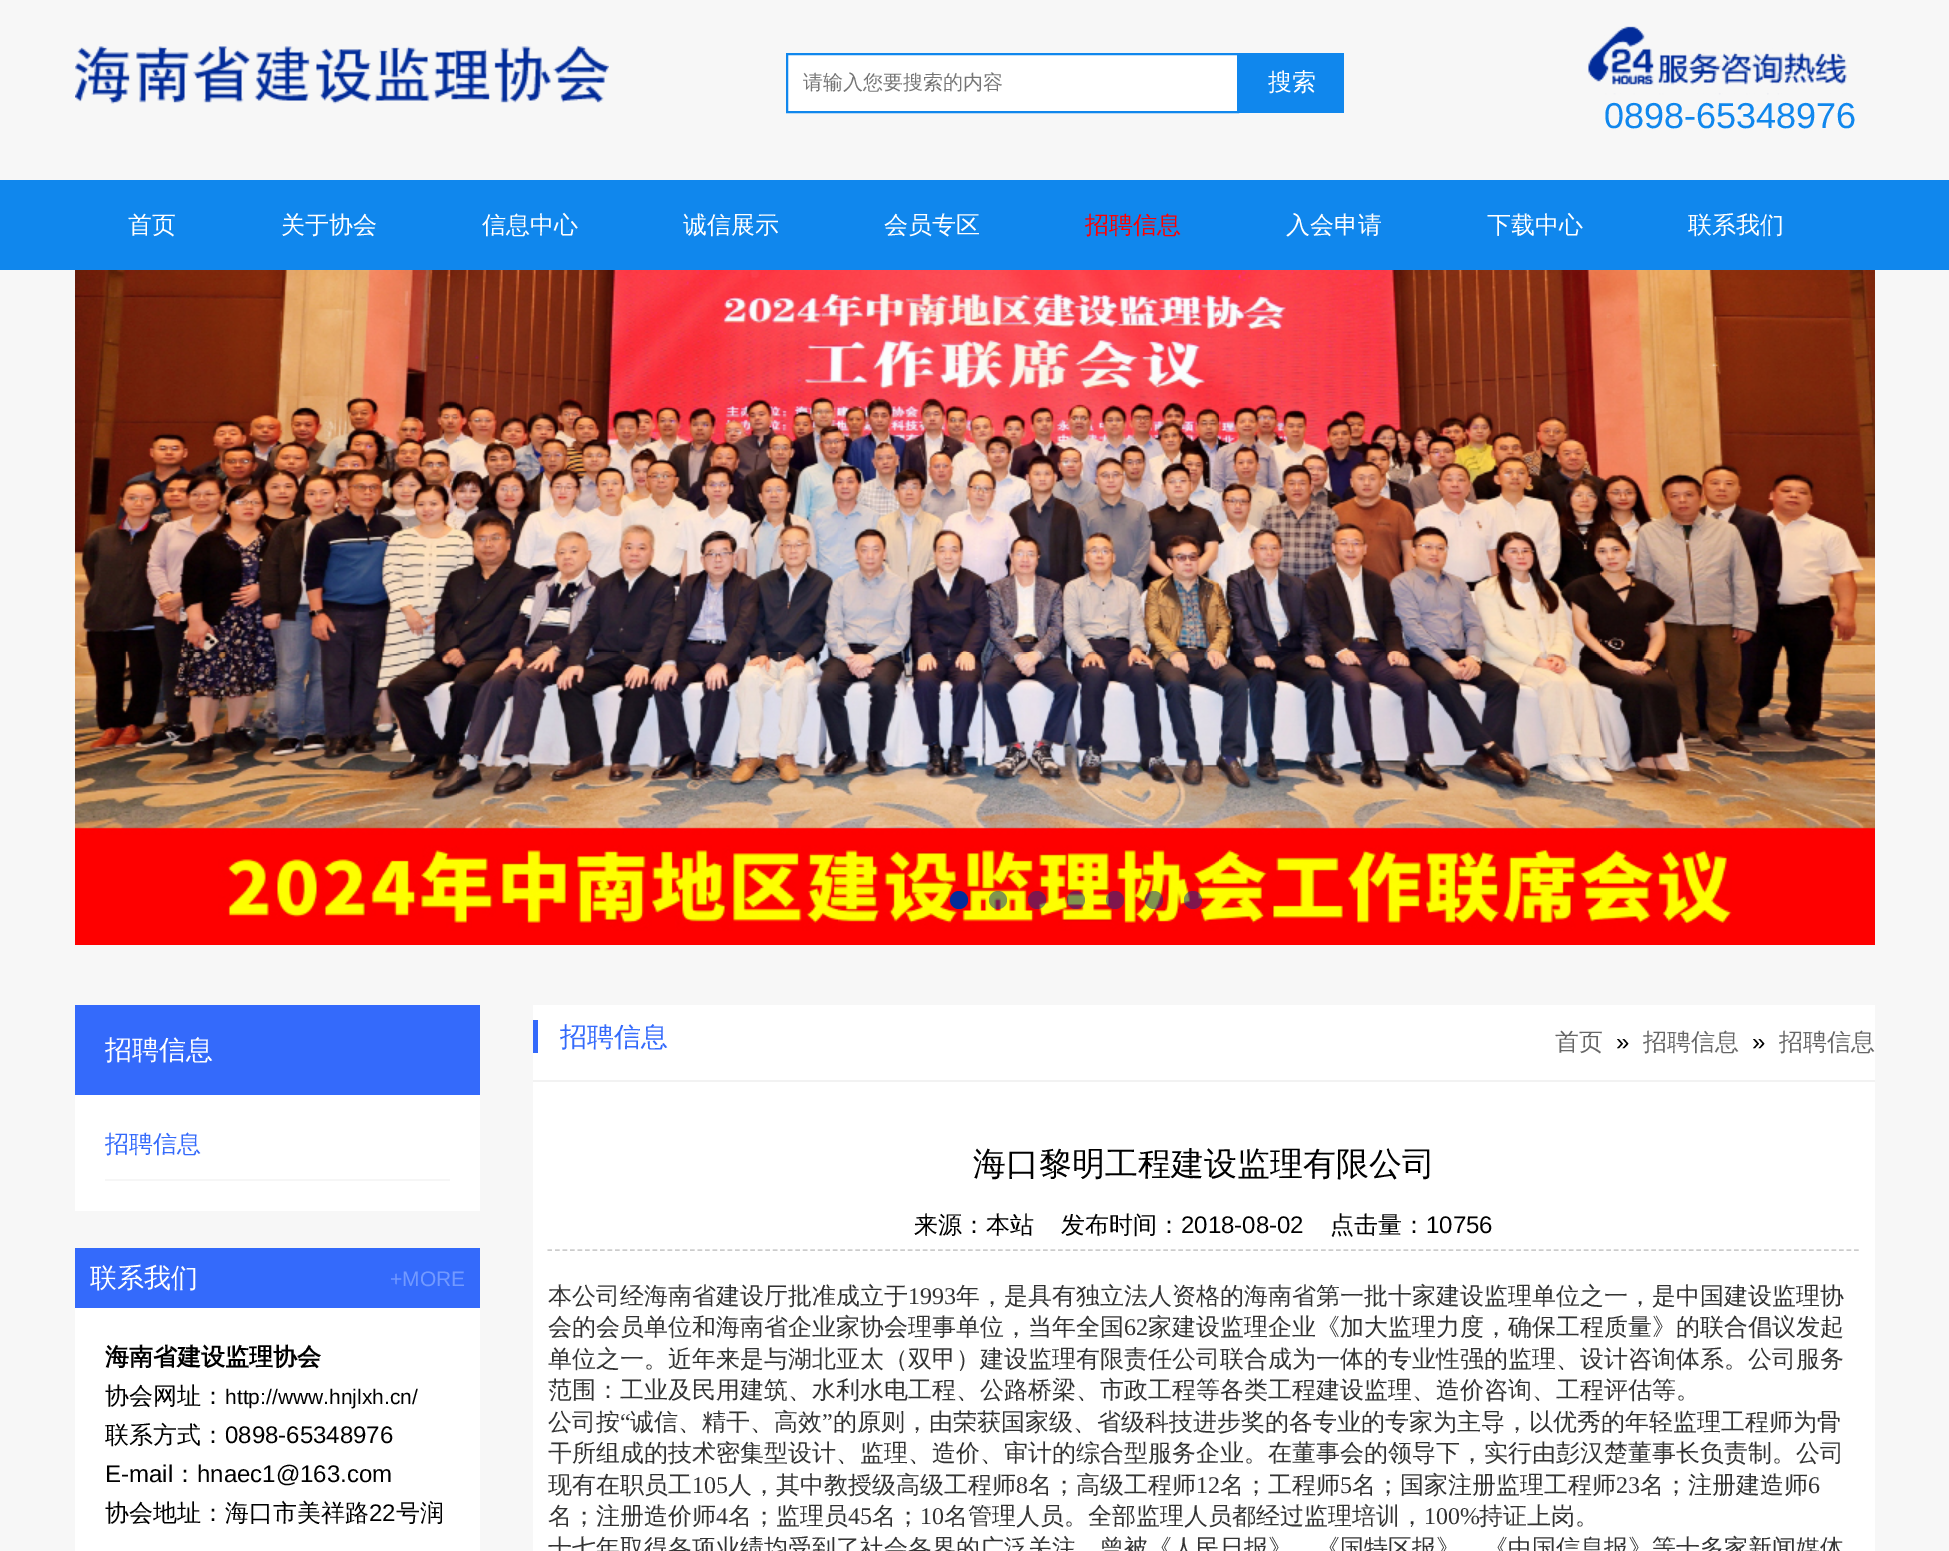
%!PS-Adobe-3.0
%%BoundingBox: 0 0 1949 1551
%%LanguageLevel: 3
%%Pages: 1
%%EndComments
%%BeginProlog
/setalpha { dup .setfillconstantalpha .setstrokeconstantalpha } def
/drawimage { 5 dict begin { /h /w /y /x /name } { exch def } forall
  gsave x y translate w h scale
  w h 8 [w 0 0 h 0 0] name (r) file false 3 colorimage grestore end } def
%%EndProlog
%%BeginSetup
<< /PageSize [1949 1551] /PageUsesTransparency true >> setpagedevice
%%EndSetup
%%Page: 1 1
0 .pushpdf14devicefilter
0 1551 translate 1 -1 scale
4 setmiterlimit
0.969 setgray
0 0 1949 1551 rectfill
(images/1.raw) 75 45 534 59 drawimage
1 setgray
newpath 787 54 moveto 1238 54 lineto 1238 112 lineto 787 112 lineto closepath gsave fill grestore
0.063 0.529 0.929 setrgbcolor
2 setlinewidth
stroke
1239 53 105 60 rectfill
(images/2.raw) 1588 26 259 69 drawimage
0 180 1949 90 rectfill
(images/3.raw) 75 270 1800 675 drawimage
0.008 0.173 0.604 setrgbcolor
newpath 959 900 9 0 360 arc closepath fill
0.5 setalpha
newpath 998 900 9 0 360 arc closepath fill
newpath 1037 900 9 0 360 arc closepath fill
newpath 1076 900 9 0 360 arc closepath fill
newpath 1115 900 9 0 360 arc closepath fill
newpath 1154 900 9 0 360 arc closepath fill
newpath 1193 900 9 0 360 arc closepath fill
1 setalpha
1 setgray
75 1095 405 116 rectfill
0.204 0.416 0.984 setrgbcolor
75 1005 405 90 rectfill
0.965 setgray
105 1179 345 2 rectfill
0.204 0.416 0.984 setrgbcolor
75 1248 405 60 rectfill
1 setgray
75 1308 405 243 rectfill
533 1005 1342 546 rectfill
0.949 setgray
533 1080 1342 2 rectfill
0.204 0.416 0.984 setrgbcolor
533 1020 5 33 rectfill
0.8 setgray
1.5 setlinewidth
[4.5 3.01] 0 setdash
newpath 547.5 1250 moveto 1860 1250 lineto stroke
/WenQuanYiZenHei-Medium [20 0 0 -20 0 0] selectfont
0.459 setgray
803 89 moveto (请输入您要搜索的内容) show
/WenQuanYiZenHei-Medium [24 0 0 -24 0 0] selectfont
1 setgray
1268 90 moveto (搜索) show
/LiberationSans-Regular [36 0 0 -36 0 0] selectfont
0.063 0.529 0.929 setrgbcolor
1604 128 moveto (0898-65348976) show
/WenQuanYiZenHei-Medium [24 0 0 -24 0 0] selectfont
1 setgray
128 233 moveto (首页) show
281 233 moveto (关于协会) show
482 233 moveto (信息中心) show
683 233 moveto (诚信展示) show
884 233 moveto (会员专区) show
1 0 0 setrgbcolor
1085 233 moveto (招聘信息) show
1 setgray
1286 233 moveto (入会申请) show
1487 233 moveto (下载中心) show
1688 233 moveto (联系我们) show
/WenQuanYiZenHei-Medium [27 0 0 -27 0 0] selectfont
105 1059 moveto (招聘信息) show
/WenQuanYiZenHei-Medium [24 0 0 -24 0 0] selectfont
0.204 0.416 0.984 setrgbcolor
105 1152 moveto (招聘信息) show
/WenQuanYiZenHei-Medium [27 0 0 -27 0 0] selectfont
1 setgray
90 1287 moveto (联系我们) show
/LiberationSans-Regular [21 0 0 -21 0 0] selectfont
0.447 0.6 1 setrgbcolor
390 1286 moveto (+MORE) show
/WenQuanYiZenHei-Bold [24 0 0 -24 0 0] selectfont
0 setgray
105 1365 moveto (海南省建设监理协会) show
/WenQuanYiZenHei-Medium [24 0 0 -24 0 0] selectfont
105 1404 moveto (协会网址：) show
/LiberationSans-Regular [21 0 0 -21 0 0] selectfont
225 1404 moveto (http://www.hnjlxh.cn/) show
/WenQuanYiZenHei-Medium [24 0 0 -24 0 0] selectfont
105 1443 moveto (联系方式：) show
/LiberationSans-Regular [24 0 0 -24 0 0] selectfont
225 1443 moveto (0898-65348976) show
105 1482 moveto (E-mail) show
/WenQuanYiZenHei-Medium [24 0 0 -24 0 0] selectfont
173 1482 moveto (：) show
/LiberationSans-Regular [24 0 0 -24 0 0] selectfont
197 1482 moveto (hnaec1@163.com) show
/WenQuanYiZenHei-Medium [24 0 0 -24 0 0] selectfont
105 1521 moveto (协会地址：海口市美祥路) show
/LiberationSans-Regular [24 0 0 -24 0 0] selectfont
369 1521 moveto (22) show
/WenQuanYiZenHei-Medium [24 0 0 -24 0 0] selectfont
396 1521 moveto (号润) show
/WenQuanYiZenHei-Medium [27 0 0 -27 0 0] selectfont
0.204 0.416 0.984 setrgbcolor
560 1046 moveto (招聘信息) show
/WenQuanYiZenHei-Medium [24 0 0 -24 0 0] selectfont
0.4 setgray
1555 1050 moveto (首页) show
/LiberationSans-Regular [24 0 0 -24 0 0] selectfont
0 setgray
1616 1050 moveto (») show
/WenQuanYiZenHei-Medium [24 0 0 -24 0 0] selectfont
0.4 setgray
1643 1050 moveto (招聘信息) show
/LiberationSans-Regular [24 0 0 -24 0 0] selectfont
0 setgray
1752 1050 moveto (») show
/WenQuanYiZenHei-Medium [24 0 0 -24 0 0] selectfont
0.4 setgray
1779 1050 moveto (招聘信息) show
/WenQuanYiZenHei-Medium [33 0 0 -33 0 0] selectfont
0 setgray
973 1175 moveto (海口黎明工程建设监理有限公司) show
/WenQuanYiZenHei-Medium [24 0 0 -24 0 0] selectfont
914 1233 moveto (来源：本站) show
1061 1233 moveto (发布时间：) show
/LiberationSans-Regular [24 0 0 -24 0 0] selectfont
1181 1233 moveto (2018-08-02) show
/WenQuanYiZenHei-Medium [24 0 0 -24 0 0] selectfont
1330 1233 moveto (点击量：) show
/LiberationSans-Regular [24 0 0 -24 0 0] selectfont
1426 1233 moveto (10756) show
/WenQuanYiZenHei-Medium [24 0 0 -24 0 0] selectfont
0.2 setgray
548 1304 moveto (本公司经海南省建设厅批准成立于) show
/LiberationSerif-Regular [24 0 0 -24 0 0] selectfont
908 1304 moveto (1993) show
/WenQuanYiZenHei-Medium [24 0 0 -24 0 0] selectfont
956 1304 moveto (年，是具有独立法人资格的海南省第一批十家建设监理单位之一，是中国建设监理协) show
548 1335 moveto (会的会员单位和海南省企业家协会理事单位，当年全国) show
/LiberationSerif-Regular [24 0 0 -24 0 0] selectfont
1124 1335 moveto (62) show
/WenQuanYiZenHei-Medium [24 0 0 -24 0 0] selectfont
1148 1335 moveto (家建设监理企业《加大监理力度，确保工程质量》的联合倡议发起) show
548 1367 moveto (单位之一。近年来是与湖北亚太（双甲）建设监理有限责任公司联合成为一体的专业性强的监理、设计咨询体系。公司服务) show
548 1398 moveto (范围：工业及民用建筑、水利水电工程、公路桥梁、市政工程等各类工程建设监理、造价咨询、工程评估等。) show
548 1430 moveto (公司按) show
/LiberationSerif-Regular [24 0 0 -24 0 0] selectfont
620 1430 moveto (“) show
/WenQuanYiZenHei-Medium [24 0 0 -24 0 0] selectfont
630 1430 moveto (诚信、精干、高效) show
/LiberationSerif-Regular [24 0 0 -24 0 0] selectfont
822 1430 moveto (”) show
/WenQuanYiZenHei-Medium [24 0 0 -24 0 0] selectfont
833 1430 moveto (的原则，由荣获国家级、省级科技进步奖的各专业的专家为主导，以优秀的年轻监理工程师为骨) show
548 1461 moveto (干所组成的技术密集型设计、监理、造价、审计的综合型服务企业。在董事会的领导下，实行由彭汉楚董事长负责制。公司) show
548 1493 moveto (现有在职员工) show
/LiberationSerif-Regular [24 0 0 -24 0 0] selectfont
692 1493 moveto (105) show
/WenQuanYiZenHei-Medium [24 0 0 -24 0 0] selectfont
728 1493 moveto (人，其中教授级高级工程师) show
/LiberationSerif-Regular [24 0 0 -24 0 0] selectfont
1016 1493 moveto (8) show
/WenQuanYiZenHei-Medium [24 0 0 -24 0 0] selectfont
1028 1493 moveto (名；高级工程师) show
/LiberationSerif-Regular [24 0 0 -24 0 0] selectfont
1196 1493 moveto (12) show
/WenQuanYiZenHei-Medium [24 0 0 -24 0 0] selectfont
1220 1493 moveto (名；工程师) show
/LiberationSerif-Regular [24 0 0 -24 0 0] selectfont
1340 1493 moveto (5) show
/WenQuanYiZenHei-Medium [24 0 0 -24 0 0] selectfont
1352 1493 moveto (名；国家注册监理工程师) show
/LiberationSerif-Regular [24 0 0 -24 0 0] selectfont
1616 1493 moveto (23) show
/WenQuanYiZenHei-Medium [24 0 0 -24 0 0] selectfont
1640 1493 moveto (名；注册建造师) show
/LiberationSerif-Regular [24 0 0 -24 0 0] selectfont
1808 1493 moveto (6) show
/WenQuanYiZenHei-Medium [24 0 0 -24 0 0] selectfont
548 1524 moveto (名；注册造价师) show
/LiberationSerif-Regular [24 0 0 -24 0 0] selectfont
716 1524 moveto (4) show
/WenQuanYiZenHei-Medium [24 0 0 -24 0 0] selectfont
728 1524 moveto (名；监理员) show
/LiberationSerif-Regular [24 0 0 -24 0 0] selectfont
848 1524 moveto (45) show
/WenQuanYiZenHei-Medium [24 0 0 -24 0 0] selectfont
872 1524 moveto (名；) show
/LiberationSerif-Regular [24 0 0 -24 0 0] selectfont
920 1524 moveto (10) show
/WenQuanYiZenHei-Medium [24 0 0 -24 0 0] selectfont
944 1524 moveto (名管理人员。全部监理人员都经过监理培训，) show
/LiberationSerif-Regular [24 0 0 -24 0 0] selectfont
1424 1524 moveto (100%) show
/WenQuanYiZenHei-Medium [24 0 0 -24 0 0] selectfont
1479 1524 moveto (持证上岗。) show
548 1556 moveto (十七年取得各项业绩均受到了社会各界的广泛关注，曾被《人民日报》，《国特区报》，《中国信息报》等十多家新闻媒体) show
.poppdf14devicefilter showpage
%%EOF
